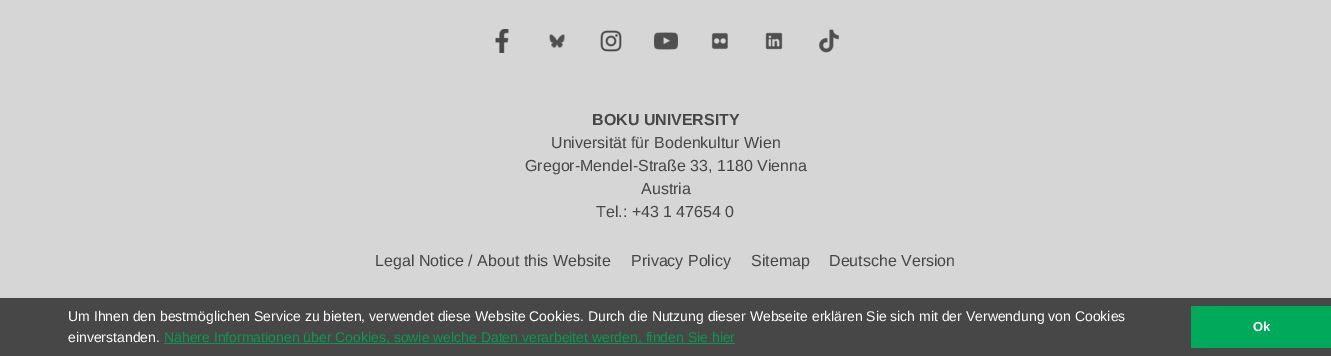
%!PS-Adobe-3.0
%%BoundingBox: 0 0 1331 356
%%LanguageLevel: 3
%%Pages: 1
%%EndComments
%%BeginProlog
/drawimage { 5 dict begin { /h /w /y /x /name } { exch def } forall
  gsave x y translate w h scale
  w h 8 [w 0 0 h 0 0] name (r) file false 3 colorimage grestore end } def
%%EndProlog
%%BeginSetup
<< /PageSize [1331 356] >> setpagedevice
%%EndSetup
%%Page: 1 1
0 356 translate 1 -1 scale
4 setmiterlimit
0.839 setgray
0 0 1331 356 rectfill
(images/1.raw) 495 29 14 24 drawimage
(images/2.raw) 549 34 16 14 drawimage
(images/3.raw) 600 30 22 22 drawimage
(images/4.raw) 654 32 24 18 drawimage
(images/5.raw) 711 32 17 18 drawimage
(images/6.raw) 765 32 18 18 drawimage
(images/7.raw) 819 29 21 24 drawimage
0.278 setgray
0 298 1331 58 rectfill
0.055 0.588 0.337 setrgbcolor
164 343 571 1 rectfill
0 0.667 0.353 setrgbcolor
1191 306 140 42 rectfill
/LiberationSans-Bold [16 0 0 -16 0 0] selectfont
0.278 setgray
592 125 moveto (BOKU UNIVERSITY) show
/LiberationSans-Regular [16 0 0 -16 0 0] selectfont
551 148 moveto (Universität für Bodenkultur Wien) show
525 171 moveto (Gregor-Mendel-Straße 33, 1180 Vienna) show
641 194 moveto (Austria) show
596 217 moveto (Tel.: +43 1 47654 0) show
375 266 moveto (Legal Notice / About this Website) show
631 266 moveto (Privacy Policy) show
751 266 moveto (Sitemap) show
829 266 moveto (Deutsche Version) show
/LiberationSans-Regular [14 0 0 -14 0 0] selectfont
1 setgray
68 321 moveto (Um Ihnen den bestmöglichen Service zu bieten, verwendet diese Website Cookies. Durch die Nutzung dieser Webseite erklären Sie sich mit der Verwendung von Cookies) show
68 342 moveto (einverstanden.) show
0.055 0.588 0.337 setrgbcolor
164 342 moveto (Nähere Informationen über Cookies, sowie welche Daten verarbeitet werden, finden Sie hier) show
/LiberationSans-Bold [13 0 0 -13 0 0] selectfont
1 setgray
1253 331 moveto (Ok) show
showpage
%%EOF
